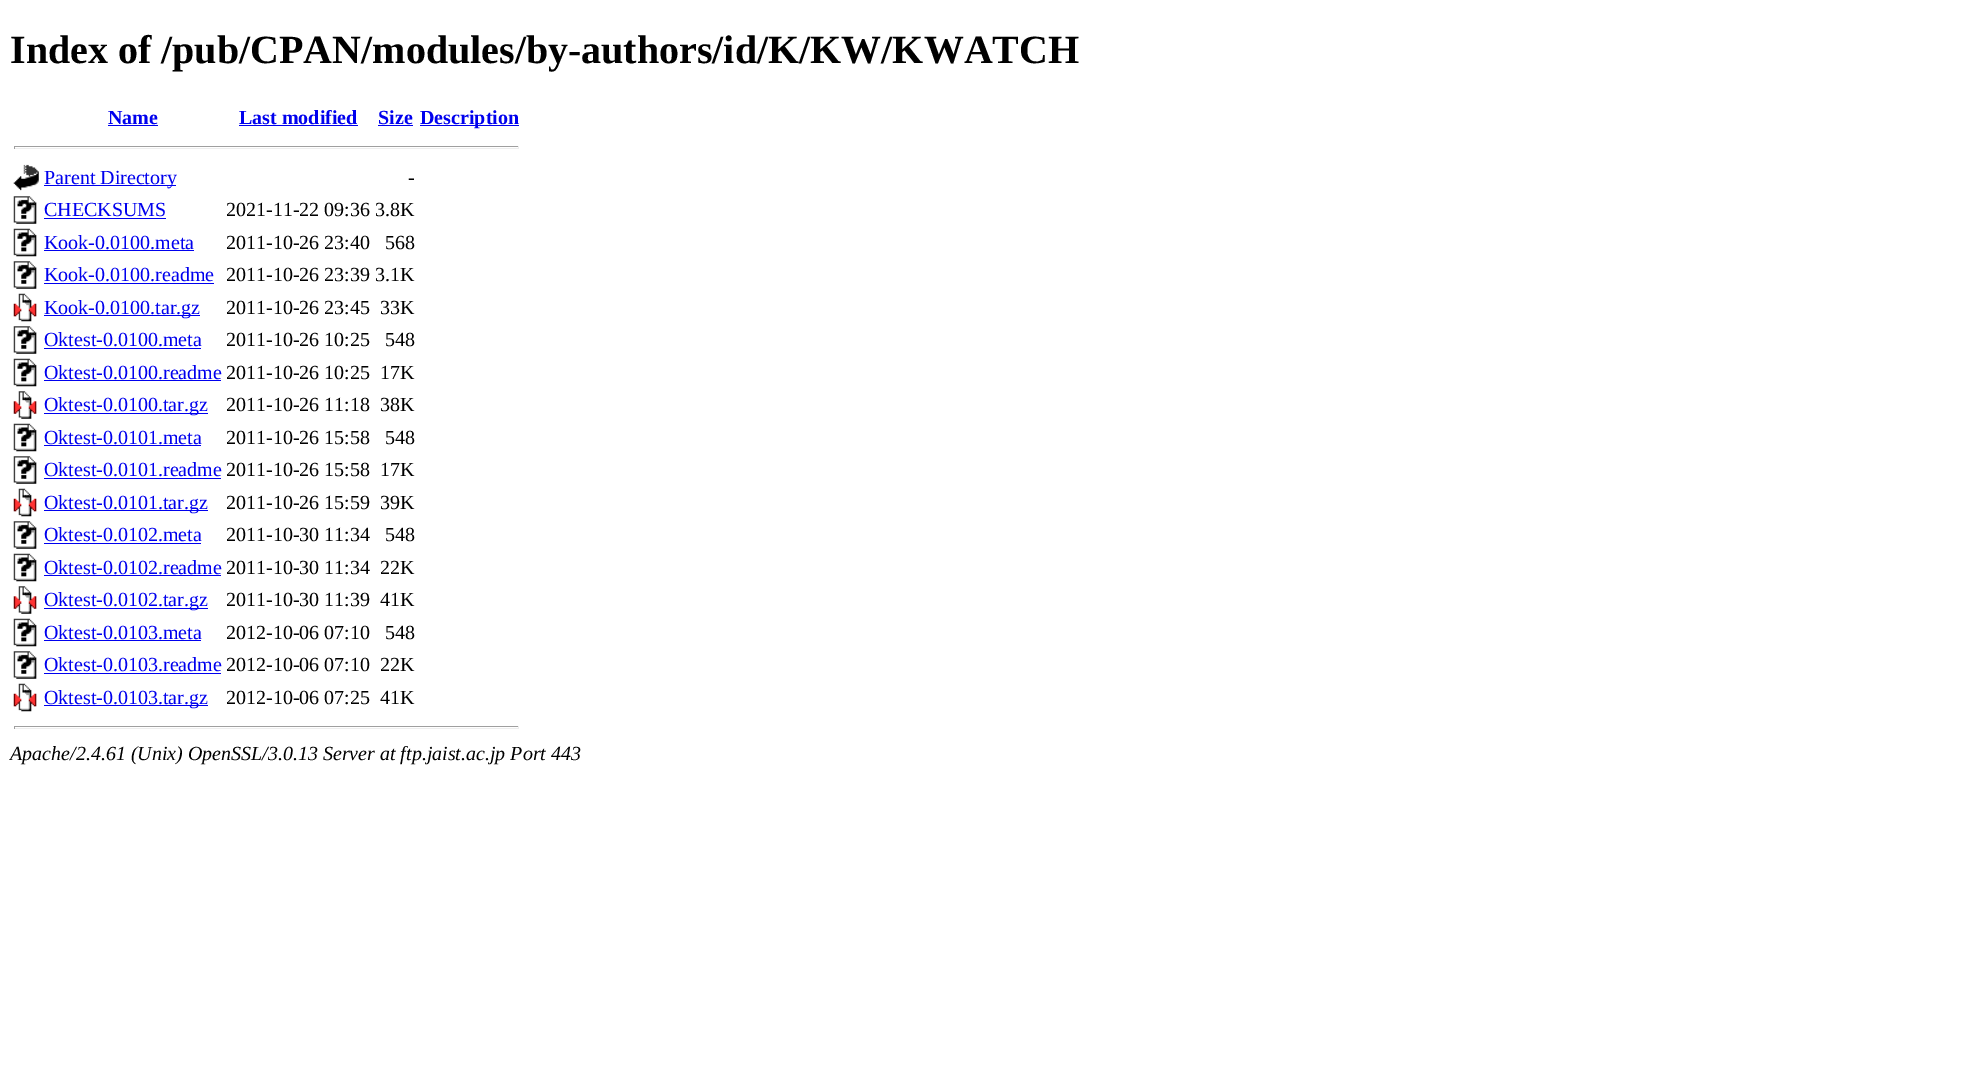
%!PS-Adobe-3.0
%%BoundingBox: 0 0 1982 1080
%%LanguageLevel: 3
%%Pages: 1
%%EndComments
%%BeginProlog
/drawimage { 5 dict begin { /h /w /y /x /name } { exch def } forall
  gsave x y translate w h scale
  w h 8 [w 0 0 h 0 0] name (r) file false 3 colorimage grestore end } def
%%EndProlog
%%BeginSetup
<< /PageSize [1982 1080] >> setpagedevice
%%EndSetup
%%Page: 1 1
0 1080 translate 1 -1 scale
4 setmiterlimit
1 setgray
0 0 1982 1080 rectfill
0 0 0.933 setrgbcolor
108 125 50 1 rectfill
239 125 119 1 rectfill
378 125 35 1 rectfill
420 125 99 1 rectfill
0.624 setgray
14 146 505 1 rectfill
0.933 setgray
518 146 1 3 rectfill
14 148 505 1 rectfill
0.624 setgray
14 146 1 3 rectfill
(images/1.raw) 13 164 26 27 drawimage
0 0 0.933 setrgbcolor
44 185 132 1 rectfill
(images/2.raw) 13 196 24 28 drawimage
44 218 122 1 rectfill
(images/3.raw) 13 228 24 29 drawimage
44 250 150 1 rectfill
(images/2.raw) 13 261 24 28 drawimage
44 283 170 1 rectfill
(images/4.raw) 13 293 24 29 drawimage
44 315 156 1 rectfill
(images/2.raw) 13 326 24 28 drawimage
44 348 157 1 rectfill
(images/3.raw) 13 358 24 29 drawimage
44 380 177 1 rectfill
(images/5.raw) 13 391 24 28 drawimage
44 413 164 1 rectfill
(images/3.raw) 13 423 24 29 drawimage
44 445 157 1 rectfill
(images/2.raw) 13 456 24 28 drawimage
44 478 177 1 rectfill
(images/6.raw) 13 488 24 29 drawimage
44 510 164 1 rectfill
(images/2.raw) 13 521 24 28 drawimage
44 543 157 1 rectfill
(images/3.raw) 13 553 24 29 drawimage
44 575 177 1 rectfill
(images/7.raw) 13 586 24 28 drawimage
44 608 164 1 rectfill
(images/3.raw) 13 618 24 29 drawimage
44 640 157 1 rectfill
(images/2.raw) 13 651 24 28 drawimage
44 673 177 1 rectfill
(images/6.raw) 13 683 24 29 drawimage
44 705 164 1 rectfill
0.624 setgray
14 726 505 1 rectfill
0.933 setgray
518 726 1 3 rectfill
14 728 505 1 rectfill
0.624 setgray
14 726 1 3 rectfill
/LiberationSerif-Bold [40 0 0 -40 0 0] selectfont
0 setgray
10 63 moveto (Index of /pub/CPAN/modules/by-authors/id/K/KW/KWATCH) show
/LiberationSerif-Bold [20 0 0 -20 0 0] selectfont
0 0 0.933 setrgbcolor
108 124 moveto (Name) show
239 124 moveto (Last modified) show
378 124 moveto (Size) show
420 124 moveto (Description) show
/LiberationSerif-Regular [20 0 0 -20 0 0] selectfont
44 184 moveto (Parent Directory) show
0 setgray
408 184 moveto (-) show
0 0 0.933 setrgbcolor
44 216 moveto (CHECKSUMS) show
0 setgray
226 216 moveto (2021-11-22 09:36 3.8K) show
0 0 0.933 setrgbcolor
44 249 moveto (Kook-0.0100.meta) show
0 setgray
226 249 moveto (2011-10-26 23:40) show
385 249 moveto (568) show
0 0 0.933 setrgbcolor
44 281 moveto (Kook-0.0100.readme) show
0 setgray
226 281 moveto (2011-10-26 23:39 3.1K) show
0 0 0.933 setrgbcolor
44 314 moveto (Kook-0.0100.tar.gz) show
0 setgray
226 314 moveto (2011-10-26 23:45) show
380 314 moveto (33K) show
0 0 0.933 setrgbcolor
44 346 moveto (Oktest-0.0100.meta) show
0 setgray
226 346 moveto (2011-10-26 10:25) show
385 346 moveto (548) show
0 0 0.933 setrgbcolor
44 379 moveto (Oktest-0.0100.readme) show
0 setgray
226 379 moveto (2011-10-26 10:25) show
380 379 moveto (17K) show
0 0 0.933 setrgbcolor
44 411 moveto (Oktest-0.0100.tar.gz) show
0 setgray
226 411 moveto (2011-10-26 11:18) show
380 411 moveto (38K) show
0 0 0.933 setrgbcolor
44 444 moveto (Oktest-0.0101.meta) show
0 setgray
226 444 moveto (2011-10-26 15:58) show
385 444 moveto (548) show
0 0 0.933 setrgbcolor
44 476 moveto (Oktest-0.0101.readme) show
0 setgray
226 476 moveto (2011-10-26 15:58) show
380 476 moveto (17K) show
0 0 0.933 setrgbcolor
44 509 moveto (Oktest-0.0101.tar.gz) show
0 setgray
226 509 moveto (2011-10-26 15:59) show
380 509 moveto (39K) show
0 0 0.933 setrgbcolor
44 541 moveto (Oktest-0.0102.meta) show
0 setgray
226 541 moveto (2011-10-30 11:34) show
385 541 moveto (548) show
0 0 0.933 setrgbcolor
44 574 moveto (Oktest-0.0102.readme) show
0 setgray
226 574 moveto (2011-10-30 11:34) show
380 574 moveto (22K) show
0 0 0.933 setrgbcolor
44 606 moveto (Oktest-0.0102.tar.gz) show
0 setgray
226 606 moveto (2011-10-30 11:39) show
380 606 moveto (41K) show
0 0 0.933 setrgbcolor
44 639 moveto (Oktest-0.0103.meta) show
0 setgray
226 639 moveto (2012-10-06 07:10) show
385 639 moveto (548) show
0 0 0.933 setrgbcolor
44 671 moveto (Oktest-0.0103.readme) show
0 setgray
226 671 moveto (2012-10-06 07:10) show
380 671 moveto (22K) show
0 0 0.933 setrgbcolor
44 704 moveto (Oktest-0.0103.tar.gz) show
0 setgray
226 704 moveto (2012-10-06 07:25) show
380 704 moveto (41K) show
/LiberationSerif-Italic [20 0 0 -20 0 0] selectfont
10 760 moveto (Apache/2.4.61 \(Unix\) OpenSSL/3.0.13 Server at ftp.jaist.ac.jp Port 443) show
showpage
%%EOF
